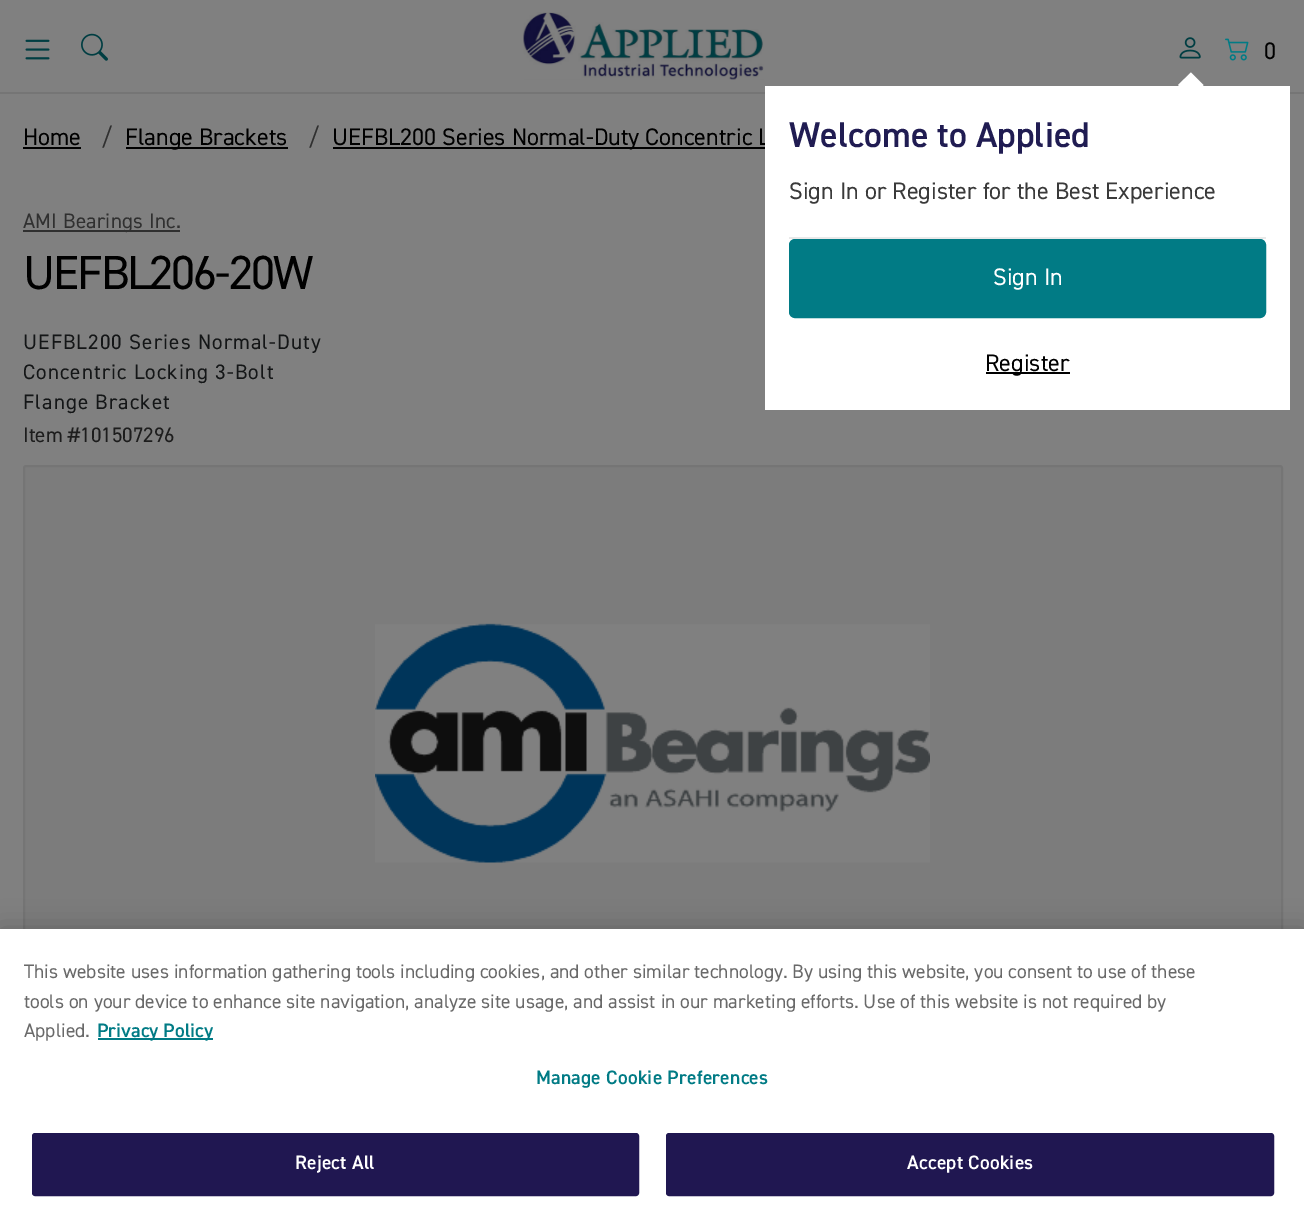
%!PS-Adobe-3.0
%%BoundingBox: 0 0 1304 1219
%%LanguageLevel: 3
%%Pages: 1
%%EndComments
%%BeginProlog
/setalpha { dup .setfillconstantalpha .setstrokeconstantalpha } def
/rrect { 5 dict begin { /r /h /w /y /x } { exch def } forall
  x r add y moveto x w add y 2 copy h add r arct x w add y h add x 1 index r arct
  x y h add x y r arct x y 2 copy exch w add exch r arct closepath end } def
/softshadow { 12 dict begin { /a /b /q /h /w /y /x } { exch def } forall gsave /was 0 def
  9 -2 -9 { dup b mul 4 div /e exch def 1 sub .425 mul 2.718 exch exp 1 add a .99 .min exch div /now exch def
    1 1 now sub 1 was sub div sub setalpha /was now def
    w h .min e 2 mul add 0 gt { x e sub y e sub w e 2 mul add h e 2 mul add
      q e add b .6 mul add w h .min 2 div e add .min 0 .max rrect fill } if } for grestore end } def
/drawimage { 5 dict begin { /h /w /y /x /name } { exch def } forall
  gsave x y translate w h scale
  w h 8 [w 0 0 h 0 0] name (r) file false 3 colorimage grestore end } def
%%EndProlog
%%BeginSetup
<< /PageSize [1304 1219] /PageUsesTransparency true >> setpagedevice
%%EndSetup
%%Page: 1 1
0 .pushpdf14devicefilter
0 1219 translate 1 -1 scale
4 setmiterlimit
0.502 setgray
0 0 1304 1219 rectfill
0 setgray
23 147 58 2 rectfill
126 147 162 2 rectfill
333 147 432 2 rectfill
0.188 setgray
23 230 157 2 rectfill
0.486 setgray
24 466 1258 556 2 rrect gsave fill grestore
0.459 setgray
2 setlinewidth
stroke
(images/1.raw) 375 623 555 240 drawimage
0 92 1304 2 rectfill
(images/2.raw) 25 39 25 21 drawimage
(images/3.raw) 81 33 27 28 drawimage
(images/4.raw) 523 12 241 68 drawimage
(images/5.raw) 1225 38 24 23 drawimage
(images/6.raw) 1179 37 22 22 drawimage
0 setgray
0 929 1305 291 0 13.5 0.2 softshadow
1 setgray
0 929 1304 290 rectfill
0.004 0.482 0.522 setrgbcolor
98 1038 115 2 rectfill
0.125 0.09 0.318 setrgbcolor
33 1134 605 61 2 rrect gsave fill grestore
stroke
667 1134 606 61 2 rrect gsave fill grestore
stroke
/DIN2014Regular-Regular [24 0 0 -24 0 0] selectfont
0 setgray
23 145 moveto (Home) show
0.188 setgray
101 145 moveto (/) show
0 setgray
125 145 moveto (Flange Brackets) show
0.188 setgray
308 145 moveto (/) show
0 setgray
332 145 moveto (UEFBL200 Series Normal-Duty Concentric L) show
/DIN2014Regular-Regular [21 0 0 -21 0 0] selectfont
0.188 setgray
23 228 moveto 0.25 0 (AMI Bearings Inc.) ashow
/DIN2014Regular-Regular [48 0 0 -48 0 0] selectfont
0 setgray
23 289 moveto -2 0 (UEFBL206-20W) ashow
/DIN2014Regular-Regular [21 0 0 -21 0 0] selectfont
0.078 0.086 0.09 setrgbcolor
23 349 moveto 1.1 0 (UEFBL200 Series Normal-Duty) ashow
23 379 moveto 1.1 0 (Concentric Locking 3-Bolt) ashow
23 409 moveto 1.1 0 (Flange Bracket) ashow
0.114 setgray
23 442 moveto (Item #101507296) show
/DIN2014Regular-Regular [24 0 0 -24 0 0] selectfont
0 setgray
1264 59 moveto (0) show
1 setgray
765 86 525 324 rectfill
newpath 1191 72.5 moveto 1203.5 85 lineto 1191 98 lineto 1178 85 lineto closepath fill
/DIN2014-SemiBold [36 0 0 -36 0 0] selectfont
0.125 0.11 0.322 setrgbcolor
789 147 moveto (Welcome to Applied) show
0.914 setgray
789 237 477 2 rectfill
/DIN2014Regular-Regular [24 0 0 -24 0 0] selectfont
0.227 setgray
789 199 moveto (Sign In or Register for the Best Experience) show
0.004 0.482 0.522 setrgbcolor
790 240 475 77 5 rrect gsave fill grestore
stroke
1 setgray
993 285 moveto (Sign In) show
0 setgray
986 372 84 2 rectfill
985 371 moveto (Register) show
/DIN2014Regular-Regular [19.5 0 0 -19.5 0 0] selectfont
0.412 setgray
24 978 moveto (This website uses information gathering tools including cookies, and other similar technology. By using this website, you consent to use of these) show
24 1008 moveto (tools on your device to enhance site navigation, analyze site usage, and assist in our marketing efforts. Use of this website is not required by) show
24 1037 moveto (Applied.) show
/DIN2014-SemiBold [19.5 0 0 -19.5 0 0] selectfont
0.004 0.482 0.522 setrgbcolor
97 1037 moveto (Privacy Policy) show
536 1084 moveto 0.2 0 (Manage Cookie Preferences) ashow
1 setgray
295 1169 moveto 0.2 0 (Reject All) ashow
907 1169 moveto 0.2 0 (Accept Cookies) ashow
.poppdf14devicefilter showpage
%%EOF
